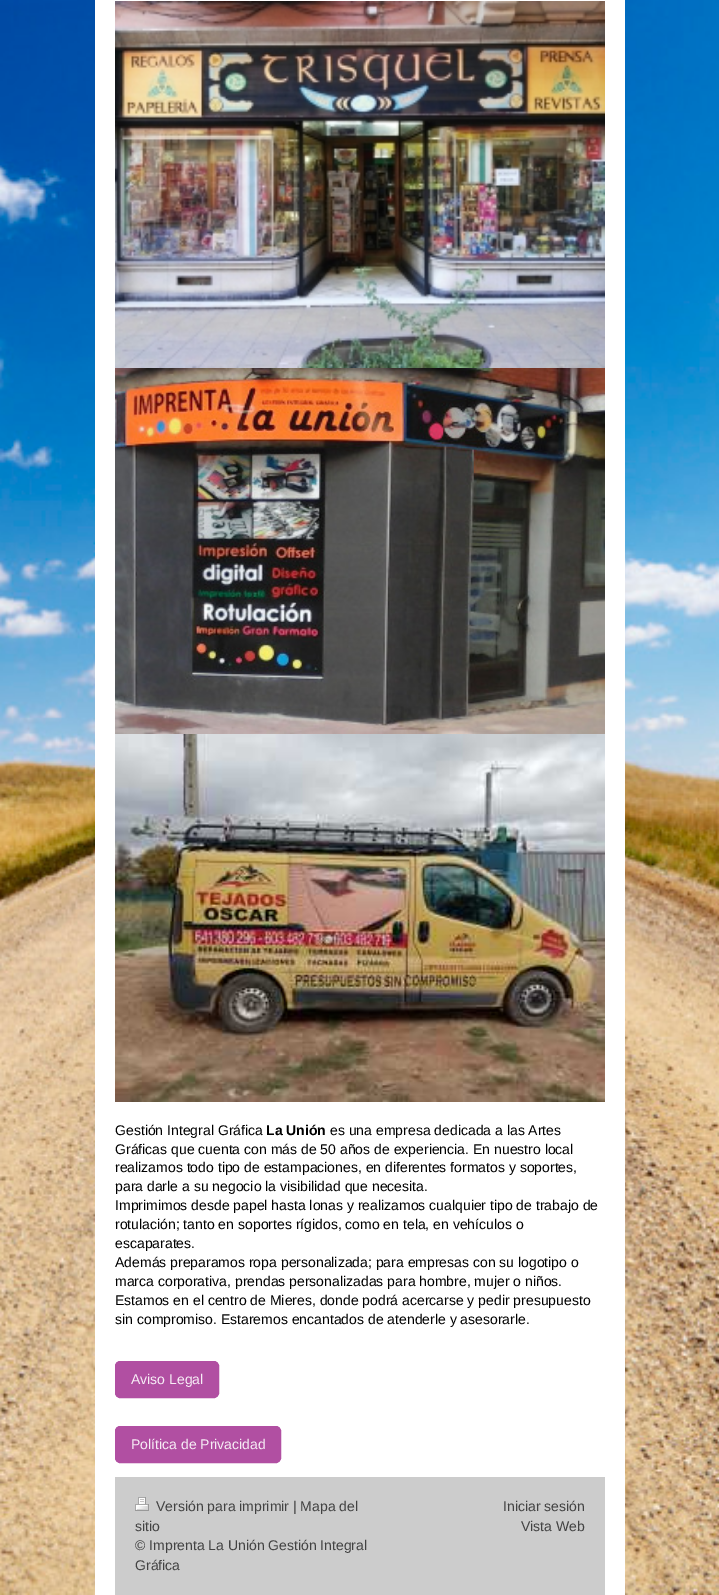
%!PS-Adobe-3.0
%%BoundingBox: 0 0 719 1595
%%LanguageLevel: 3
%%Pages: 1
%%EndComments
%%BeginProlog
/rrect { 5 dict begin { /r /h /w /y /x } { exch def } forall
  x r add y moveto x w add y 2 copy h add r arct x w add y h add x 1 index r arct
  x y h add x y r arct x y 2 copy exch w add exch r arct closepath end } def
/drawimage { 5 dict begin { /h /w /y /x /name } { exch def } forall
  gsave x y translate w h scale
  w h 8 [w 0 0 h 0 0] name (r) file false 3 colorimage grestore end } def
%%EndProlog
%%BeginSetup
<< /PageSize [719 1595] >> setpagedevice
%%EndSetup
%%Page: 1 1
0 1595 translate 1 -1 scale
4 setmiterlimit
1 setgray
0 0 719 1595 rectfill
(images/1.raw) 0 0 719 1595 drawimage
95 0 530 1595 rectfill
(images/2.raw) 115 1 490 367 drawimage
(images/3.raw) 115 368 490 366 drawimage
(images/4.raw) 115 734 490 368 drawimage
0.694 0.31 0.635 setrgbcolor
115.5 1361.5 103 36 4.5 rrect gsave fill grestore
stroke
115.5 1426.5 165 36 4.5 rrect gsave fill grestore
stroke
0.8 setgray
115 1477 490 118 rectfill
(images/5.raw) 135 1497 14 14 drawimage
/LiberationSans-Regular [14 0 0 -14 0 0] selectfont
0 setgray
115 1135 moveto (Gestión Integral Gráfica) show
/LiberationSans-Bold [14 0 0 -14 0 0] selectfont
266 1135 moveto (La Unión) show
/LiberationSans-Regular [14 0 0 -14 0 0] selectfont
330 1135 moveto (es una empresa dedicada a las Artes) show
115 1154 moveto (Gráficas que cuenta con más de 50 años de experiencia. En nuestro local) show
115 1172 moveto (realizamos todo tipo de estampaciones, en diferentes formatos y soportes,) show
115 1191 moveto (para darle a su negocio la visibilidad que necesita.) show
115 1210 moveto (Imprimimos desde papel hasta lonas y realizamos cualquier tipo de trabajo de) show
115 1229 moveto (rotulación; tanto en soportes rígidos, como en tela, en vehículos o) show
115 1248 moveto (escaparates.) show
115 1267 moveto (Además preparamos ropa personalizada; para empresas con su logotipo o) show
115 1286 moveto (marca corporativa, prendas personalizadas para hombre, mujer o niños.) show
115 1305 moveto (Estamos en el centro de Mieres, donde podrá acercarse y pedir presupuesto) show
115 1324 moveto (sin compromiso. Estaremos encantados de atenderle y asesorarle.) show
0.969 0.929 0.965 setrgbcolor
131 1384 moveto (Aviso Legal) show
131 1449 moveto (Política de Privacidad) show
0.259 setgray
156 1511 moveto (Versión para imprimir | Mapa del) show
135 1531 moveto (sitio) show
gsave
135 1497 450 78 rectclip
135 1550 moveto (© Imprenta La Unión Gestión Integral) show
grestore
135 1570 moveto (Gráfica) show
503 1511 moveto (Iniciar sesión) show
521 1531 moveto (Vista Web) show
showpage
%%EOF
